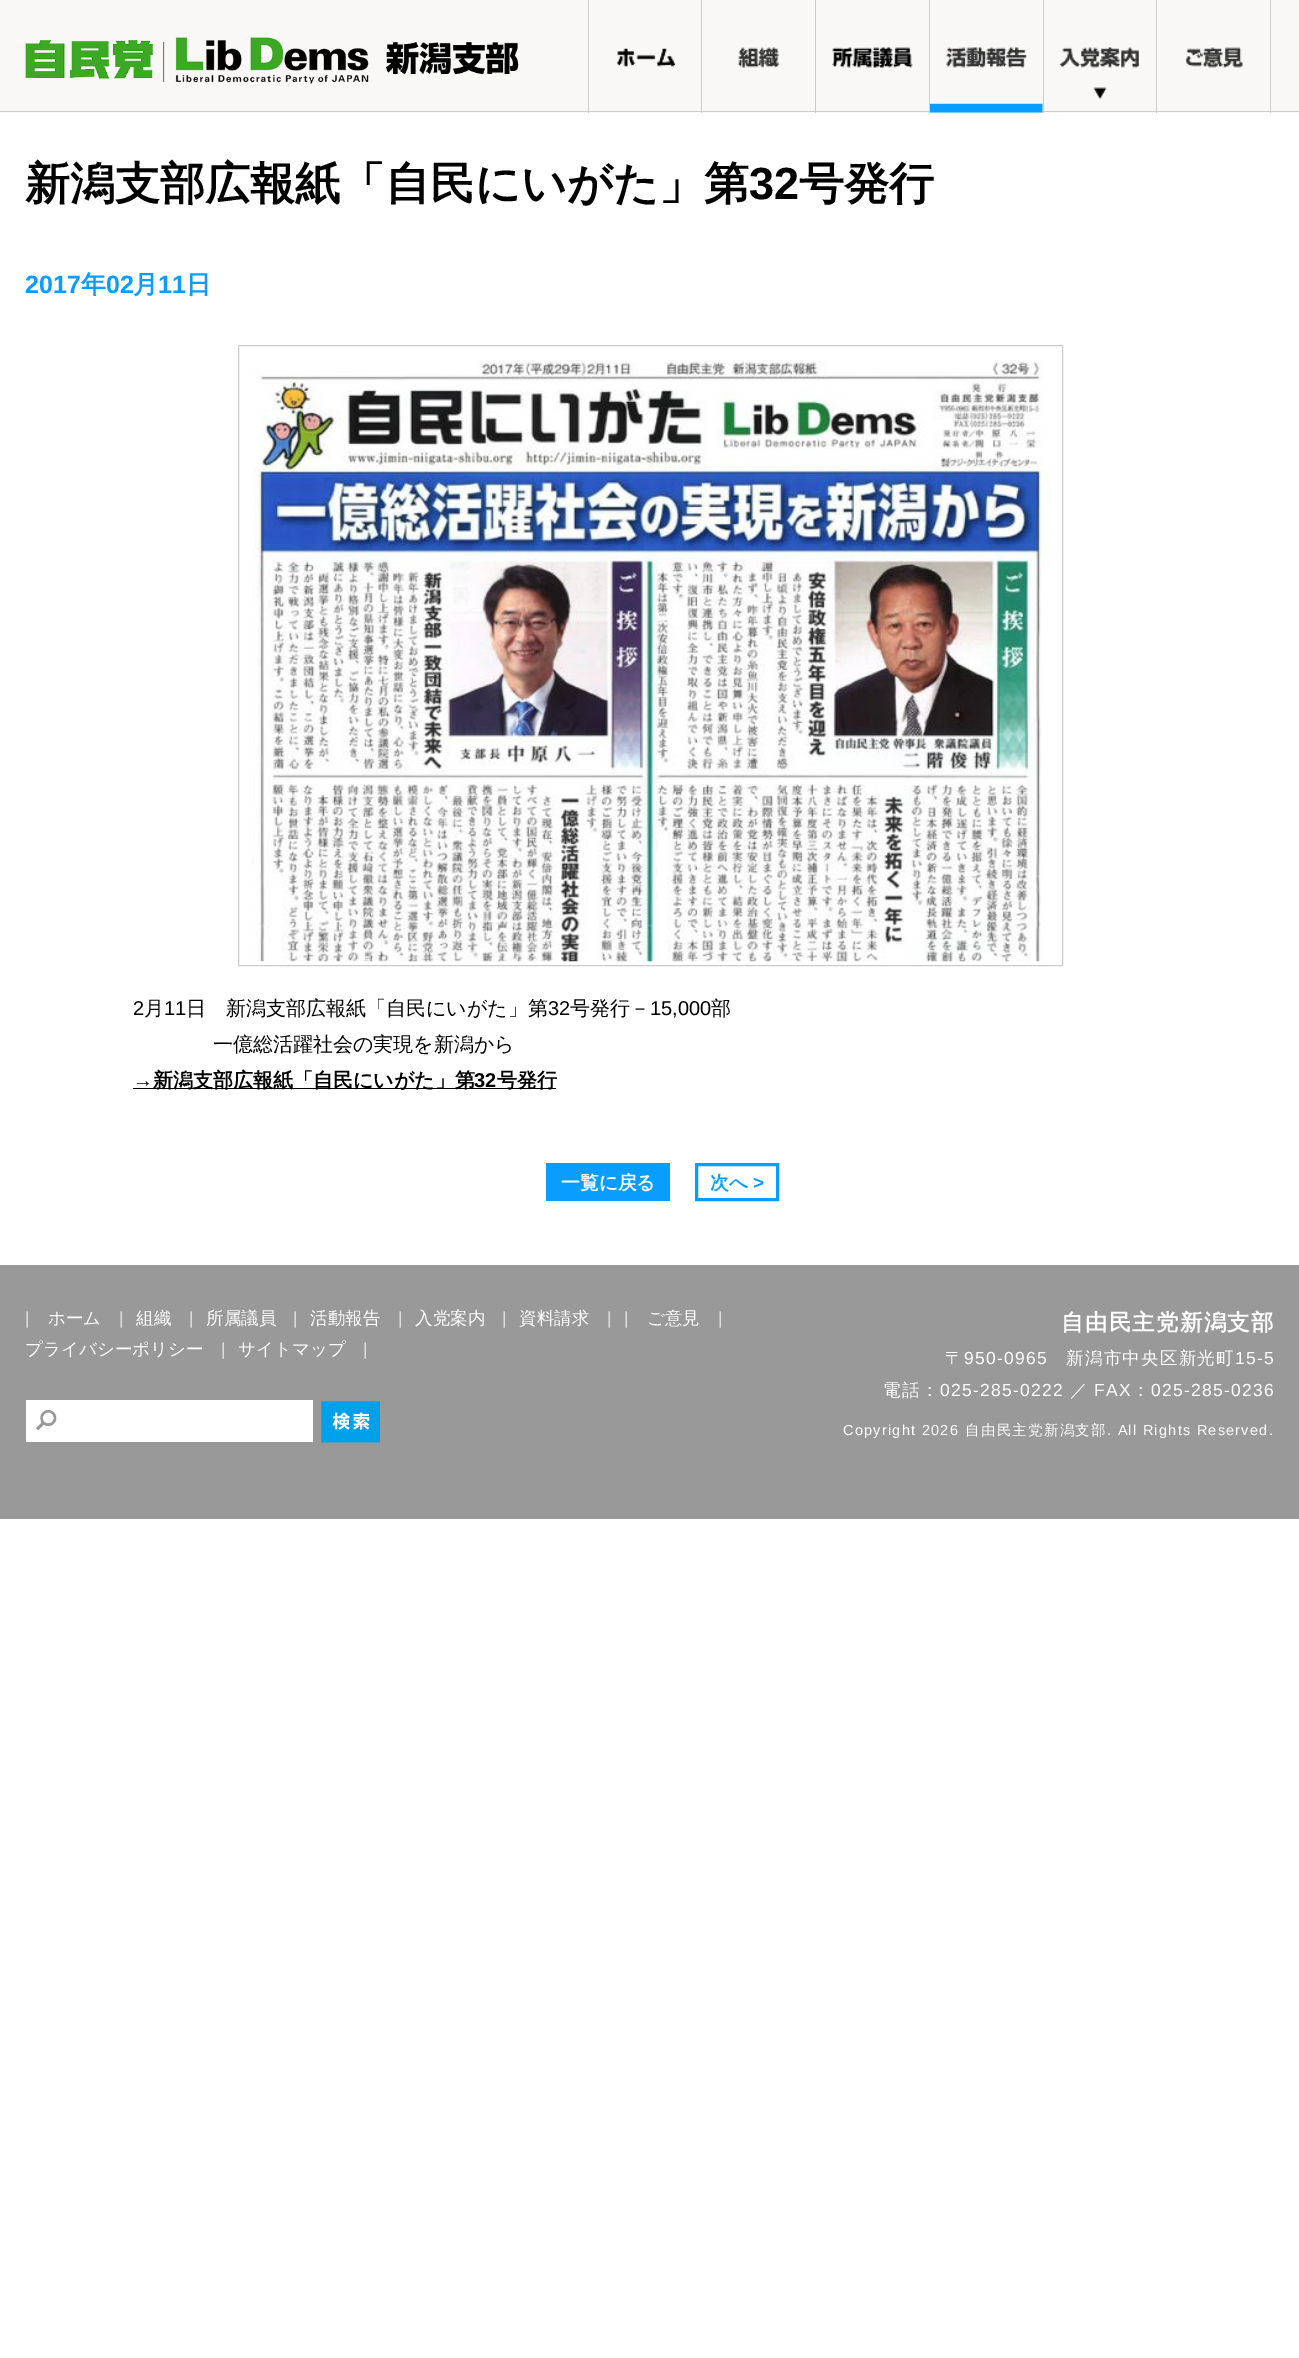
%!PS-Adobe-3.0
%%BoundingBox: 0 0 1299 2358
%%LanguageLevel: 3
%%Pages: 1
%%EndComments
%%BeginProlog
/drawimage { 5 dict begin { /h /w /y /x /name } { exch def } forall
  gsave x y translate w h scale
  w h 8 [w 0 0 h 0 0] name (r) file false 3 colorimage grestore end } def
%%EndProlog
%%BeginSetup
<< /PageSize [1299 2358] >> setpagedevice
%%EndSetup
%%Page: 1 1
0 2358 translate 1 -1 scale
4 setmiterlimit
1 setgray
0 0 1299 2358 rectfill
0.976 0.973 0.969 setrgbcolor
0 0 1299 113 rectfill
0.8 setgray
0 111 1299 1 rectfill
(images/1.raw) 25 37 494 47 drawimage
588 0 1 113 rectfill
(images/2.raw) 616 48 60 19 drawimage
701 0 1 113 rectfill
(images/3.raw) 738 47 41 21 drawimage
815 0 1 113 rectfill
(images/4.raw) 832 47 81 21 drawimage
929 0 1 113 rectfill
(images/5.raw) 930 47 113 66 drawimage
1043 0 1 113 rectfill
(images/6.raw) 1059 47 80 52 drawimage
1156 0 1 113 rectfill
(images/7.raw) 1186 47 57 21 drawimage
1270 0 1 113 rectfill
238.5 345.5 824 620 rectstroke
(images/8.raw) 251 360 801 602 drawimage
0 setgray
133 1088 423 1 rectfill
0.031 0.616 1 setrgbcolor
546 1163 124 38 rectfill
3 setlinewidth
696.5 1164.5 81 35 rectstroke
0.6 setgray
0 1265 1299 254 rectfill
1 setgray
26 1400 287 42 rectfill
(images/9.raw) 36 1410 21 20 drawimage
(images/10.raw) 321 1401 59 42 drawimage
/WenQuanYiZenHei-Bold [45 0 0 -45 0 0] selectfont
0 setgray
25 199 moveto (新潟支部広報紙「自民にいがた」第) show
/LiberationSans-Bold [45 0 0 -45 0 0] selectfont
749 199 moveto (32) show
/WenQuanYiZenHei-Bold [45 0 0 -45 0 0] selectfont
799 199 moveto (号発行) show
/LiberationSans-Bold [25 0 0 -25 0 0] selectfont
0.031 0.616 1 setrgbcolor
25 293 moveto (2017) show
/WenQuanYiZenHei-Bold [25 0 0 -25 0 0] selectfont
81 293 moveto (年) show
/LiberationSans-Bold [25 0 0 -25 0 0] selectfont
106 293 moveto (02) show
/WenQuanYiZenHei-Bold [25 0 0 -25 0 0] selectfont
133 293 moveto (月) show
/LiberationSans-Bold [25 0 0 -25 0 0] selectfont
158 293 moveto (11) show
/WenQuanYiZenHei-Bold [25 0 0 -25 0 0] selectfont
186 293 moveto (日) show
/LiberationSans-Regular [20 0 0 -20 0 0] selectfont
0 setgray
133 1015 moveto (2) show
/WenQuanYiZenHei-Medium [20 0 0 -20 0 0] selectfont
144 1015 moveto (月) show
/LiberationSans-Regular [20 0 0 -20 0 0] selectfont
164 1015 moveto (11) show
/WenQuanYiZenHei-Medium [20 0 0 -20 0 0] selectfont
186 1015 moveto (日　新潟支部広報紙「自民にいがた」第) show
/LiberationSans-Regular [20 0 0 -20 0 0] selectfont
548 1015 moveto (32) show
/WenQuanYiZenHei-Medium [20 0 0 -20 0 0] selectfont
570 1015 moveto (号発行－) show
/LiberationSans-Regular [20 0 0 -20 0 0] selectfont
650 1015 moveto (15,000) show
/WenQuanYiZenHei-Medium [20 0 0 -20 0 0] selectfont
711 1015 moveto (部) show
213 1051 moveto (一億総活躍社会の実現を新潟から) show
/LiberationSans-Bold [20 0 0 -20 0 0] selectfont
133 1087 moveto (→) show
/WenQuanYiZenHei-Bold [20 0 0 -20 0 0] selectfont
153 1087 moveto (新潟支部広報紙「自民にいがた」第) show
/LiberationSans-Bold [20 0 0 -20 0 0] selectfont
474 1087 moveto (32) show
/WenQuanYiZenHei-Bold [20 0 0 -20 0 0] selectfont
497 1087 moveto (号発行) show
/WenQuanYiZenHei-Bold [18.75 0 0 -18.75 0 0] selectfont
1 setgray
561 1189 moveto (一覧に戻る) show
0.031 0.616 1 setrgbcolor
710 1189 moveto (次へ) show
/LiberationSans-Bold [18.75 0 0 -18.75 0 0] selectfont
753 1189 moveto (>) show
/LiberationSans-Regular [17.5 0 0 -17.5 0 0] selectfont
0.867 setgray
25 1324 moveto (|) show
/WenQuanYiZenHei-Medium [17.5 0 0 -17.5 0 0] selectfont
1 setgray
48 1324 moveto (ホーム) show
/LiberationSans-Regular [17.5 0 0 -17.5 0 0] selectfont
0.867 setgray
119 1324 moveto (|) show
/WenQuanYiZenHei-Medium [17.5 0 0 -17.5 0 0] selectfont
1 setgray
136 1324 moveto (組織) show
/LiberationSans-Regular [17.5 0 0 -17.5 0 0] selectfont
0.867 setgray
189 1324 moveto (|) show
/WenQuanYiZenHei-Medium [17.5 0 0 -17.5 0 0] selectfont
1 setgray
206 1324 moveto (所属議員) show
/LiberationSans-Regular [17.5 0 0 -17.5 0 0] selectfont
0.867 setgray
293 1324 moveto (|) show
/WenQuanYiZenHei-Medium [17.5 0 0 -17.5 0 0] selectfont
1 setgray
310 1324 moveto (活動報告) show
/LiberationSans-Regular [17.5 0 0 -17.5 0 0] selectfont
0.867 setgray
398 1324 moveto (|) show
/WenQuanYiZenHei-Medium [17.5 0 0 -17.5 0 0] selectfont
1 setgray
415 1324 moveto (入党案内) show
/LiberationSans-Regular [17.5 0 0 -17.5 0 0] selectfont
0.867 setgray
502 1324 moveto (|) show
/WenQuanYiZenHei-Medium [17.5 0 0 -17.5 0 0] selectfont
1 setgray
519 1324 moveto (資料請求) show
/LiberationSans-Regular [17.5 0 0 -17.5 0 0] selectfont
0.867 setgray
607 1324 moveto (|) show
624 1324 moveto (|) show
/WenQuanYiZenHei-Medium [17.5 0 0 -17.5 0 0] selectfont
1 setgray
647 1324 moveto (ご意見) show
/LiberationSans-Regular [17.5 0 0 -17.5 0 0] selectfont
0.867 setgray
718 1324 moveto (|) show
/WenQuanYiZenHei-Medium [17.5 0 0 -17.5 0 0] selectfont
1 setgray
25 1355 moveto (プライバシーポリシー) show
/LiberationSans-Regular [17.5 0 0 -17.5 0 0] selectfont
0.867 setgray
221 1355 moveto (|) show
/WenQuanYiZenHei-Medium [17.5 0 0 -17.5 0 0] selectfont
1 setgray
238 1355 moveto (サイトマップ) show
/LiberationSans-Regular [17.5 0 0 -17.5 0 0] selectfont
0.867 setgray
363 1355 moveto (|) show
/WenQuanYiZenHei-Bold [22.5 0 0 -22.5 0 0] selectfont
1 setgray
1061 1330 moveto 1.25 0 (自由民主党新潟支部) ashow
/WenQuanYiZenHei-Medium [17.5 0 0 -17.5 0 0] selectfont
945 1364 moveto 1.25 0 (〒) ashow
/LiberationSans-Regular [17.5 0 0 -17.5 0 0] selectfont
964 1364 moveto 1.25 0 (950-0965) ashow
/WenQuanYiZenHei-Medium [17.5 0 0 -17.5 0 0] selectfont
1066 1364 moveto 1.25 0 (新潟市中央区新光町) ashow
/LiberationSans-Regular [17.5 0 0 -17.5 0 0] selectfont
1235 1364 moveto 1.25 0 (15-5) ashow
/WenQuanYiZenHei-Medium [17.5 0 0 -17.5 0 0] selectfont
883 1396 moveto 1.25 0 (電話：) ashow
/LiberationSans-Regular [17.5 0 0 -17.5 0 0] selectfont
940 1396 moveto 1.25 0 (025-285-0222) ashow
/WenQuanYiZenHei-Medium [17.5 0 0 -17.5 0 0] selectfont
1070 1396 moveto 1.25 0 (／) ashow
/LiberationSans-Regular [17.5 0 0 -17.5 0 0] selectfont
1094 1396 moveto 1.25 0 (FAX) ashow
/WenQuanYiZenHei-Medium [17.5 0 0 -17.5 0 0] selectfont
1132 1396 moveto 1.25 0 (：) ashow
/LiberationSans-Regular [17.5 0 0 -17.5 0 0] selectfont
1151 1396 moveto 1.25 0 (025-285-0236) ashow
/LiberationSans-Regular [14.5 0 0 -14.5 0 0] selectfont
843 1435 moveto 1.25 0 (Copyright 2026) ashow
/WenQuanYiZenHei-Medium [14.5 0 0 -14.5 0 0] selectfont
965 1435 moveto 1.25 0 (自由民主党新潟支部) ashow
/LiberationSans-Regular [14.5 0 0 -14.5 0 0] selectfont
1107 1435 moveto 1.25 0 (. All Rights Reserved.) ashow
showpage
%%EOF
